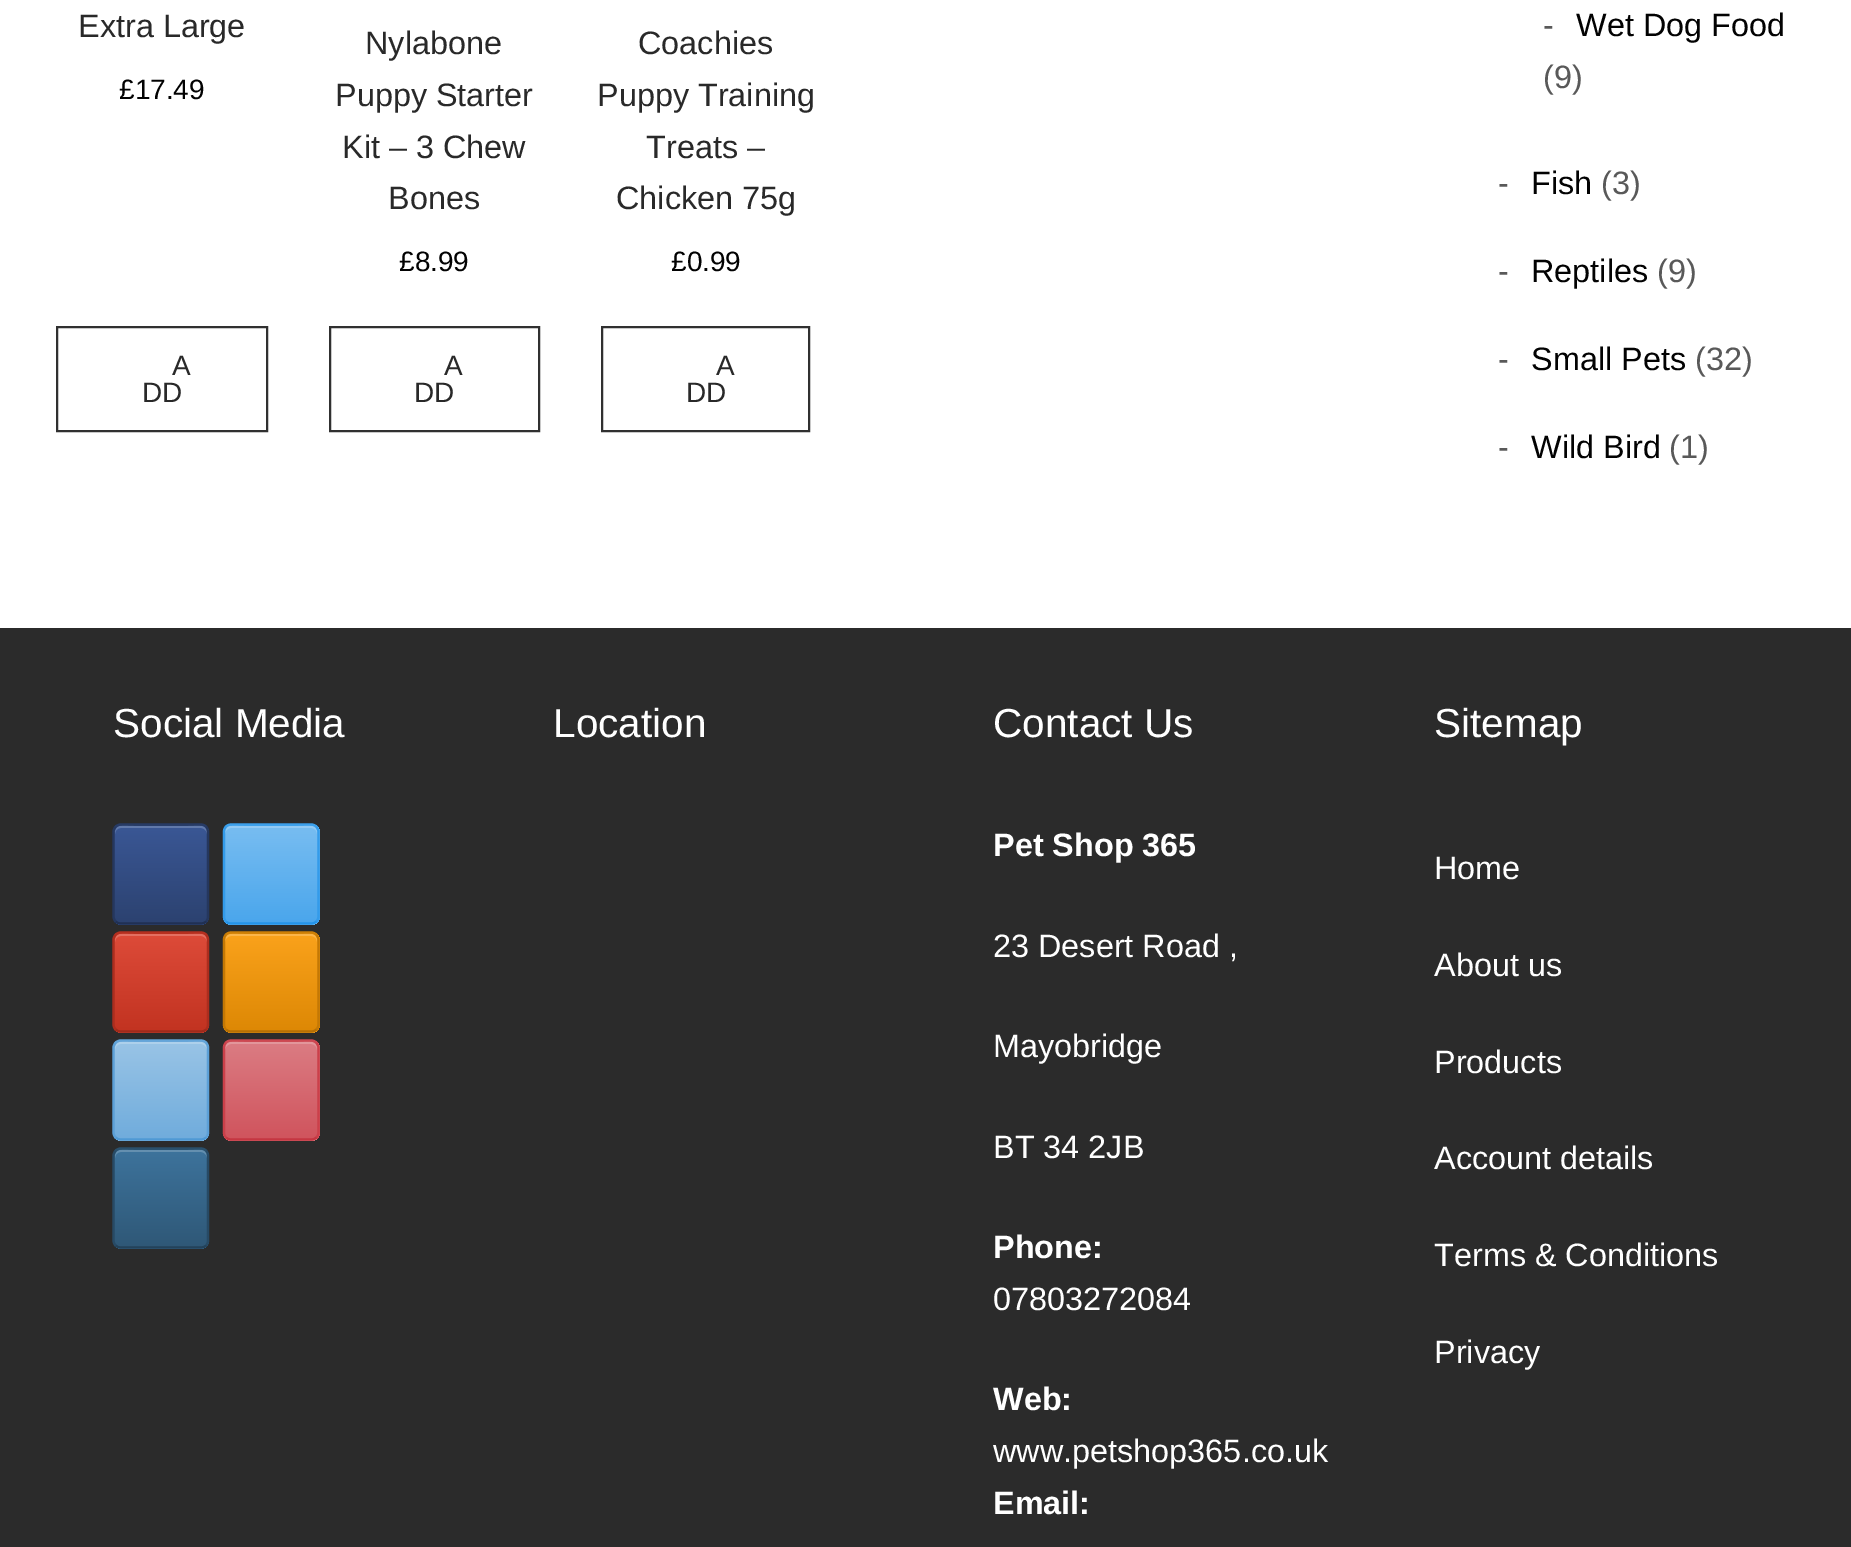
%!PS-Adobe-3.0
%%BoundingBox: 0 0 1851 1547
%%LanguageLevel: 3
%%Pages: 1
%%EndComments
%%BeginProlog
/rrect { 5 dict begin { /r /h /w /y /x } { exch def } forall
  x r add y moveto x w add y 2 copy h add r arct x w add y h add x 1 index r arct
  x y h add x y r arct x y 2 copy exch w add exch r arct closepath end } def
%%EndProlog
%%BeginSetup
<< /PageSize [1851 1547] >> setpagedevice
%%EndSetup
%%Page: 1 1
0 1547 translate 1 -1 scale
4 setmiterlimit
1 setgray
0 0 1851 1547 rectfill
0.188 setgray
2 setlinewidth
57 327 210 104 rectstroke
330 327 209 104 rectstroke
602 327 207 104 rectstroke
0.169 setgray
0 628 1851 919 rectfill
gsave
113 824 96 101 9 rrect clip newpath
gsave newpath 113 825 moveto 209 825 lineto 209 826 lineto 113 826 lineto closepath clip newpath
<< /ShadingType 2 /ColorSpace /DeviceRGB /Coords [115 826 115 729] /Extend [true true] /Function << /FunctionType 2 /Domain [0 1] /C0 [0.173 0.259 0.439] /C1 [0.227 0.341 0.584] /N 1 >> >> shfill grestore
gsave newpath 113 826 moveto 209 826 lineto 209 923 lineto 113 923 lineto closepath clip newpath
<< /ShadingType 2 /ColorSpace /DeviceRGB /Coords [115 923 115 826] /Extend [true true] /Function << /FunctionType 2 /Domain [0 1] /C0 [0.173 0.259 0.439] /C1 [0.227 0.341 0.584] /N 1 >> >> shfill grestore
gsave newpath 113 923 moveto 209 923 lineto 209 925 lineto 113 925 lineto closepath clip newpath
<< /ShadingType 2 /ColorSpace /DeviceRGB /Coords [115 1019 115 923] /Extend [true true] /Function << /FunctionType 2 /Domain [0 1] /C0 [0.173 0.259 0.439] /C1 [0.227 0.341 0.584] /N 1 >> >> shfill grestore
grestore
0.38 0.475 0.667 setrgbcolor
newpath 121 828 moveto 201 828 lineto 204 828 207 831 207 834 curveto 207 823 197 826 188 826 curveto 134 826 lineto 125 826 115 823 115 834 curveto 115 831 117 828 121 828 curveto closepath fill
0.153 0.231 0.396 setrgbcolor
2.2 setlinewidth
newpath 115.5 826.5 moveto 117 825.5 119 824.5 120.5 824.5 curveto 201 824.5 lineto 203 824.5 205 825.5 206 826.5 curveto stroke
0.145 0.216 0.369 setrgbcolor
newpath 206 826.5 moveto 207.5 828 208 830 208 831.5 curveto 208 916.5 lineto 208 918.5 207.5 920.5 206 921.5 curveto stroke
0.125 0.188 0.325 setrgbcolor
newpath 206 921.5 moveto 205 923 203 923.5 201 923.5 curveto 120.5 923.5 lineto 119 923.5 117 923 115.5 921.5 curveto stroke
0.145 0.216 0.369 setrgbcolor
newpath 115.5 921.5 moveto 114.5 920.5 113.5 918.5 113.5 916.5 curveto 113.5 831.5 lineto 113.5 830 114.5 828 115.5 826.5 curveto stroke
gsave
223 824 97 101 9 rrect clip newpath
gsave newpath 223 824 moveto 320 824 lineto 320 826 lineto 223 826 lineto closepath clip newpath
<< /ShadingType 2 /ColorSpace /DeviceRGB /Coords [225 826 225 729] /Extend [true true] /Function << /FunctionType 2 /Domain [0 1] /C0 [0.29 0.651 0.925] /C1 [0.471 0.741 0.945] /N 1 >> >> shfill grestore
gsave newpath 223 826 moveto 320 826 lineto 320 923 lineto 223 923 lineto closepath clip newpath
<< /ShadingType 2 /ColorSpace /DeviceRGB /Coords [225 923 225 826] /Extend [true true] /Function << /FunctionType 2 /Domain [0 1] /C0 [0.29 0.651 0.925] /C1 [0.471 0.741 0.945] /N 1 >> >> shfill grestore
gsave newpath 223 923 moveto 320 923 lineto 320 925 lineto 223 925 lineto closepath clip newpath
<< /ShadingType 2 /ColorSpace /DeviceRGB /Coords [225 1019 225 923] /Extend [true true] /Function << /FunctionType 2 /Domain [0 1] /C0 [0.29 0.651 0.925] /C1 [0.471 0.741 0.945] /N 1 >> >> shfill grestore
grestore
0.576 0.792 0.957 setrgbcolor
newpath 231 828 moveto 311 828 lineto 315 828 317 831 317 834 curveto 317 823 307 826 298 826 curveto 244 826 lineto 235 826 225 823 225 834 curveto 225 831 228 828 231 828 curveto closepath fill
0.235 0.627 0.922 setrgbcolor
newpath 226 826.5 moveto 227 825.5 229 824.5 231 824.5 curveto 311.5 824.5 lineto 313 824.5 315 825.5 316.5 826.5 curveto stroke
0.2 0.608 0.918 setrgbcolor
newpath 316.5 826.5 moveto 317.5 828 318.5 830 318.5 831.5 curveto 318.5 916.5 lineto 318.5 918.5 317.5 920.5 316.5 921.5 curveto stroke
0.145 0.58 0.91 setrgbcolor
newpath 316.5 921.5 moveto 315 923 313 923.5 311.5 923.5 curveto 231 923.5 lineto 229 923.5 227 923 226 921.5 curveto stroke
0.2 0.608 0.918 setrgbcolor
newpath 226 921.5 moveto 224.5 920.5 224 918.5 224 916.5 curveto 224 831.5 lineto 224 830 224.5 828 226 826.5 curveto stroke
gsave
113 932 96 101 9 rrect clip newpath
gsave newpath 113 933 moveto 209 933 lineto 209 934 lineto 113 934 lineto closepath clip newpath
<< /ShadingType 2 /ColorSpace /DeviceRGB /Coords [115 934 115 837] /Extend [true true] /Function << /FunctionType 2 /Domain [0 1] /C0 [0.761 0.2 0.129] /C1 [0.867 0.294 0.224] /N 1 >> >> shfill grestore
gsave newpath 113 934 moveto 209 934 lineto 209 1031 lineto 113 1031 lineto closepath clip newpath
<< /ShadingType 2 /ColorSpace /DeviceRGB /Coords [115 1031 115 934] /Extend [true true] /Function << /FunctionType 2 /Domain [0 1] /C0 [0.761 0.2 0.129] /C1 [0.867 0.294 0.224] /N 1 >> >> shfill grestore
gsave newpath 113 1031 moveto 209 1031 lineto 209 1033 lineto 113 1033 lineto closepath clip newpath
<< /ShadingType 2 /ColorSpace /DeviceRGB /Coords [115 1127 115 1031] /Extend [true true] /Function << /FunctionType 2 /Domain [0 1] /C0 [0.761 0.2 0.129] /C1 [0.867 0.294 0.224] /N 1 >> >> shfill grestore
grestore
0.894 0.435 0.38 setrgbcolor
newpath 121 936 moveto 201 936 lineto 204 936 207 939 207 942 curveto 207 931 197 934 188 934 curveto 134 934 lineto 125 934 115 931 115 942 curveto 115 939 117 936 121 936 curveto closepath fill
0.71 0.184 0.122 setrgbcolor
newpath 115.5 934.5 moveto 117 933.5 119 932.5 120.5 932.5 curveto 201 932.5 lineto 203 932.5 205 933.5 206 934.5 curveto stroke
0.675 0.176 0.118 setrgbcolor
newpath 206 934.5 moveto 207.5 936 208 938 208 939.5 curveto 208 1024.5 lineto 208 1026.5 207.5 1028.5 206 1029.5 curveto stroke
0.624 0.165 0.106 setrgbcolor
newpath 206 1029.5 moveto 205 1031 203 1031.5 201 1031.5 curveto 120.5 1031.5 lineto 119 1031.5 117 1031 115.5 1029.5 curveto stroke
0.675 0.176 0.118 setrgbcolor
newpath 115.5 1029.5 moveto 114.5 1028.5 113.5 1026.5 113.5 1024.5 curveto 113.5 939.5 lineto 113.5 938 114.5 936 115.5 934.5 curveto stroke
gsave
223 932 97 101 9 rrect clip newpath
gsave newpath 223 932 moveto 320 932 lineto 320 934 lineto 223 934 lineto closepath clip newpath
<< /ShadingType 2 /ColorSpace /DeviceRGB /Coords [225 934 225 837] /Extend [true true] /Function << /FunctionType 2 /Domain [0 1] /C0 [0.867 0.533 0.02] /C1 [0.98 0.635 0.106] /N 1 >> >> shfill grestore
gsave newpath 223 934 moveto 320 934 lineto 320 1031 lineto 223 1031 lineto closepath clip newpath
<< /ShadingType 2 /ColorSpace /DeviceRGB /Coords [225 1031 225 934] /Extend [true true] /Function << /FunctionType 2 /Domain [0 1] /C0 [0.867 0.533 0.02] /C1 [0.98 0.635 0.106] /N 1 >> >> shfill grestore
gsave newpath 223 1031 moveto 320 1031 lineto 320 1033 lineto 223 1033 lineto closepath clip newpath
<< /ShadingType 2 /ColorSpace /DeviceRGB /Coords [225 1127 225 1031] /Extend [true true] /Function << /FunctionType 2 /Domain [0 1] /C0 [0.867 0.533 0.02] /C1 [0.98 0.635 0.106] /N 1 >> >> shfill grestore
grestore
0.984 0.71 0.286 setrgbcolor
newpath 231 936 moveto 311 936 lineto 315 936 317 939 317 942 curveto 317 931 307 934 298 934 curveto 244 934 lineto 235 934 225 931 225 942 curveto 225 939 228 936 231 936 curveto closepath fill
0.808 0.498 0.02 setrgbcolor
newpath 226 934.5 moveto 227 933.5 229 932.5 231 932.5 curveto 311.5 932.5 lineto 313 932.5 315 933.5 316.5 934.5 curveto stroke
0.769 0.471 0.016 setrgbcolor
newpath 316.5 934.5 moveto 317.5 936 318.5 938 318.5 939.5 curveto 318.5 1024.5 lineto 318.5 1026.5 317.5 1028.5 316.5 1029.5 curveto stroke
0.71 0.435 0.016 setrgbcolor
newpath 316.5 1029.5 moveto 315 1031 313 1031.5 311.5 1031.5 curveto 231 1031.5 lineto 229 1031.5 227 1031 226 1029.5 curveto stroke
0.769 0.471 0.016 setrgbcolor
newpath 226 1029.5 moveto 224.5 1028.5 224 1026.5 224 1024.5 curveto 224 939.5 lineto 224 938 224.5 936 226 934.5 curveto stroke
gsave
113 1040 96 101 9 rrect clip newpath
gsave newpath 113 1041 moveto 209 1041 lineto 209 1042 lineto 113 1042 lineto closepath clip newpath
<< /ShadingType 2 /ColorSpace /DeviceRGB /Coords [115 1042 115 945] /Extend [true true] /Function << /FunctionType 2 /Domain [0 1] /C0 [0.439 0.675 0.863] /C1 [0.6 0.769 0.902] /N 1 >> >> shfill grestore
gsave newpath 113 1042 moveto 209 1042 lineto 209 1139 lineto 113 1139 lineto closepath clip newpath
<< /ShadingType 2 /ColorSpace /DeviceRGB /Coords [115 1139 115 1042] /Extend [true true] /Function << /FunctionType 2 /Domain [0 1] /C0 [0.439 0.675 0.863] /C1 [0.6 0.769 0.902] /N 1 >> >> shfill grestore
gsave newpath 113 1139 moveto 209 1139 lineto 209 1141 lineto 113 1141 lineto closepath clip newpath
<< /ShadingType 2 /ColorSpace /DeviceRGB /Coords [115 1235 115 1139] /Extend [true true] /Function << /FunctionType 2 /Domain [0 1] /C0 [0.439 0.675 0.863] /C1 [0.6 0.769 0.902] /N 1 >> >> shfill grestore
grestore
0.678 0.816 0.922 setrgbcolor
newpath 121 1044 moveto 201 1044 lineto 204 1044 207 1047 207 1050 curveto 207 1039 197 1042 188 1042 curveto 134 1042 lineto 125 1042 115 1039 115 1050 curveto 115 1047 117 1044 121 1044 curveto closepath fill
0.392 0.647 0.851 setrgbcolor
newpath 115.5 1042.5 moveto 117 1041.5 119 1040.5 120.5 1040.5 curveto 201 1040.5 lineto 203 1040.5 205 1041.5 206 1042.5 curveto stroke
0.361 0.627 0.843 setrgbcolor
newpath 206 1042.5 moveto 207.5 1044 208 1046 208 1047.5 curveto 208 1132.5 lineto 208 1134.5 207.5 1136.5 206 1137.5 curveto stroke
0.31 0.6 0.831 setrgbcolor
newpath 206 1137.5 moveto 205 1139 203 1139.5 201 1139.5 curveto 120.5 1139.5 lineto 119 1139.5 117 1139 115.5 1137.5 curveto stroke
0.361 0.627 0.843 setrgbcolor
newpath 115.5 1137.5 moveto 114.5 1136.5 113.5 1134.5 113.5 1132.5 curveto 113.5 1047.5 lineto 113.5 1046 114.5 1044 115.5 1042.5 curveto stroke
gsave
223 1040 97 101 9 rrect clip newpath
gsave newpath 223 1040 moveto 320 1040 lineto 320 1042 lineto 223 1042 lineto closepath clip newpath
<< /ShadingType 2 /ColorSpace /DeviceRGB /Coords [225 1042 225 945] /Extend [true true] /Function << /FunctionType 2 /Domain [0 1] /C0 [0.816 0.329 0.365] /C1 [0.859 0.486 0.514] /N 1 >> >> shfill grestore
gsave newpath 223 1042 moveto 320 1042 lineto 320 1139 lineto 223 1139 lineto closepath clip newpath
<< /ShadingType 2 /ColorSpace /DeviceRGB /Coords [225 1139 225 1042] /Extend [true true] /Function << /FunctionType 2 /Domain [0 1] /C0 [0.816 0.329 0.365] /C1 [0.859 0.486 0.514] /N 1 >> >> shfill grestore
gsave newpath 223 1139 moveto 320 1139 lineto 320 1141 lineto 223 1141 lineto closepath clip newpath
<< /ShadingType 2 /ColorSpace /DeviceRGB /Coords [225 1235 225 1139] /Extend [true true] /Function << /FunctionType 2 /Domain [0 1] /C0 [0.816 0.329 0.365] /C1 [0.859 0.486 0.514] /N 1 >> >> shfill grestore
grestore
0.886 0.588 0.608 setrgbcolor
newpath 231 1044 moveto 311 1044 lineto 315 1044 317 1047 317 1050 curveto 317 1039 307 1042 298 1042 curveto 244 1042 lineto 235 1042 225 1039 225 1050 curveto 225 1047 228 1044 231 1044 curveto closepath fill
0.804 0.282 0.322 setrgbcolor
newpath 226 1042.5 moveto 227 1041.5 229 1040.5 231 1040.5 curveto 311.5 1040.5 lineto 313 1040.5 315 1041.5 316.5 1042.5 curveto stroke
0.796 0.251 0.29 setrgbcolor
newpath 316.5 1042.5 moveto 317.5 1044 318.5 1046 318.5 1047.5 curveto 318.5 1132.5 lineto 318.5 1134.5 317.5 1136.5 316.5 1137.5 curveto stroke
0.773 0.212 0.255 setrgbcolor
newpath 316.5 1137.5 moveto 315 1139 313 1139.5 311.5 1139.5 curveto 231 1139.5 lineto 229 1139.5 227 1139 226 1137.5 curveto stroke
0.796 0.251 0.29 setrgbcolor
newpath 226 1137.5 moveto 224.5 1136.5 224 1134.5 224 1132.5 curveto 224 1047.5 lineto 224 1046 224.5 1044 226 1042.5 curveto stroke
gsave
113 1148 96 101 9 rrect clip newpath
gsave newpath 113 1149 moveto 209 1149 lineto 209 1150 lineto 113 1150 lineto closepath clip newpath
<< /ShadingType 2 /ColorSpace /DeviceRGB /Coords [115 1150 115 1053] /Extend [true true] /Function << /FunctionType 2 /Domain [0 1] /C0 [0.184 0.345 0.467] /C1 [0.239 0.451 0.612] /N 1 >> >> shfill grestore
gsave newpath 113 1150 moveto 209 1150 lineto 209 1247 lineto 113 1247 lineto closepath clip newpath
<< /ShadingType 2 /ColorSpace /DeviceRGB /Coords [115 1247 115 1150] /Extend [true true] /Function << /FunctionType 2 /Domain [0 1] /C0 [0.184 0.345 0.467] /C1 [0.239 0.451 0.612] /N 1 >> >> shfill grestore
gsave newpath 113 1247 moveto 209 1247 lineto 209 1249 lineto 113 1249 lineto closepath clip newpath
<< /ShadingType 2 /ColorSpace /DeviceRGB /Coords [115 1343 115 1247] /Extend [true true] /Function << /FunctionType 2 /Domain [0 1] /C0 [0.184 0.345 0.467] /C1 [0.239 0.451 0.612] /N 1 >> >> shfill grestore
grestore
0.392 0.561 0.686 setrgbcolor
newpath 121 1152 moveto 201 1152 lineto 204 1152 207 1155 207 1158 curveto 207 1147 197 1150 188 1150 curveto 134 1150 lineto 125 1150 115 1147 115 1158 curveto 115 1155 117 1152 121 1152 curveto closepath fill
0.165 0.314 0.424 setrgbcolor
newpath 115.5 1150.5 moveto 117 1149.5 119 1148.5 120.5 1148.5 curveto 201 1148.5 lineto 203 1148.5 205 1149.5 206 1150.5 curveto stroke
0.153 0.29 0.396 setrgbcolor
newpath 206 1150.5 moveto 207.5 1152 208 1154 208 1155.5 curveto 208 1240.5 lineto 208 1242.5 207.5 1244.5 206 1245.5 curveto stroke
0.137 0.259 0.353 setrgbcolor
newpath 206 1245.5 moveto 205 1247 203 1247.5 201 1247.5 curveto 120.5 1247.5 lineto 119 1247.5 117 1247 115.5 1245.5 curveto stroke
0.153 0.29 0.396 setrgbcolor
newpath 115.5 1245.5 moveto 114.5 1244.5 113.5 1242.5 113.5 1240.5 curveto 113.5 1155.5 lineto 113.5 1154 114.5 1152 115.5 1150.5 curveto stroke
/LiberationSans-Regular [32.4 0 0 -32.4 0 0] selectfont
0.161 setgray
78 37 moveto (Extra Large) show
/LiberationSans-Regular [28 0 0 -28 0 0] selectfont
0.008 setgray
119 99 moveto (£17.49) show
0.161 setgray
172 375 moveto (A) show
142 402 moveto (DD) show
/LiberationSans-Regular [32.4 0 0 -32.4 0 0] selectfont
365 54 moveto (Nylabone) show
335 106 moveto (Puppy Starter) show
342 158 moveto (Kit – 3 Chew) show
388 209 moveto (Bones) show
/LiberationSans-Regular [28 0 0 -28 0 0] selectfont
0.008 setgray
399 271 moveto (£8.99) show
0.161 setgray
444 375 moveto (A) show
414 402 moveto (DD) show
/LiberationSans-Regular [32.4 0 0 -32.4 0 0] selectfont
638 54 moveto (Coachies) show
597 106 moveto (Puppy Training) show
646 158 moveto (Treats –) show
616 209 moveto (Chicken 75g) show
/LiberationSans-Regular [28 0 0 -28 0 0] selectfont
0.008 setgray
671 271 moveto (£0.99) show
0.161 setgray
716 375 moveto (A) show
686 402 moveto (DD) show
/LiberationSans-Regular [32.4 0 0 -32.4 0 0] selectfont
0.349 setgray
1543 36 moveto (-) show
0.008 setgray
1576 36 moveto (Wet Dog Food) show
0.349 setgray
1543 88 moveto (\(9\)) show
1498 194 moveto (-) show
0.008 setgray
1531 194 moveto (Fish) show
0.349 setgray
1601 194 moveto (\(3\)) show
1498 282 moveto (-) show
0.008 setgray
1531 282 moveto (Reptiles) show
0.349 setgray
1657 282 moveto (\(9\)) show
1498 370 moveto (-) show
0.008 setgray
1531 370 moveto (Small Pets) show
0.349 setgray
1695 370 moveto (\(32\)) show
1498 458 moveto (-) show
0.008 setgray
1531 458 moveto (Wild Bird) show
0.349 setgray
1669 458 moveto (\(1\)) show
/LiberationSans-Regular [40.5 0 0 -40.5 0 0] selectfont
1 setgray
113 737 moveto (Social Media) show
553 737 moveto (Location) show
993 737 moveto (Contact Us) show
/LiberationSans-Bold [32.4 0 0 -32.4 0 0] selectfont
993 856 moveto (Pet Shop 365) show
/LiberationSans-Regular [32.4 0 0 -32.4 0 0] selectfont
993 957 moveto (23 Desert Road ,) show
993 1057 moveto (Mayobridge) show
993 1158 moveto (BT 34 2JB) show
/LiberationSans-Bold [32.4 0 0 -32.4 0 0] selectfont
993 1258 moveto (Phone:) show
/LiberationSans-Regular [32.4 0 0 -32.4 0 0] selectfont
993 1310 moveto (07803272084) show
/LiberationSans-Bold [32.4 0 0 -32.4 0 0] selectfont
993 1410 moveto (Web:) show
/LiberationSans-Regular [32.4 0 0 -32.4 0 0] selectfont
993 1462 moveto (www.petshop365.co.uk) show
/LiberationSans-Bold [32.4 0 0 -32.4 0 0] selectfont
993 1514 moveto (Email:) show
/LiberationSans-Regular [40.5 0 0 -40.5 0 0] selectfont
1434 737 moveto (Sitemap) show
/LiberationSans-Regular [32.4 0 0 -32.4 0 0] selectfont
1434 879 moveto (Home) show
1434 976 moveto (About us) show
1434 1073 moveto (Products) show
1434 1169 moveto (Account details) show
1434 1266 moveto (Terms & Conditions) show
1434 1363 moveto (Privacy) show
showpage
%%EOF
